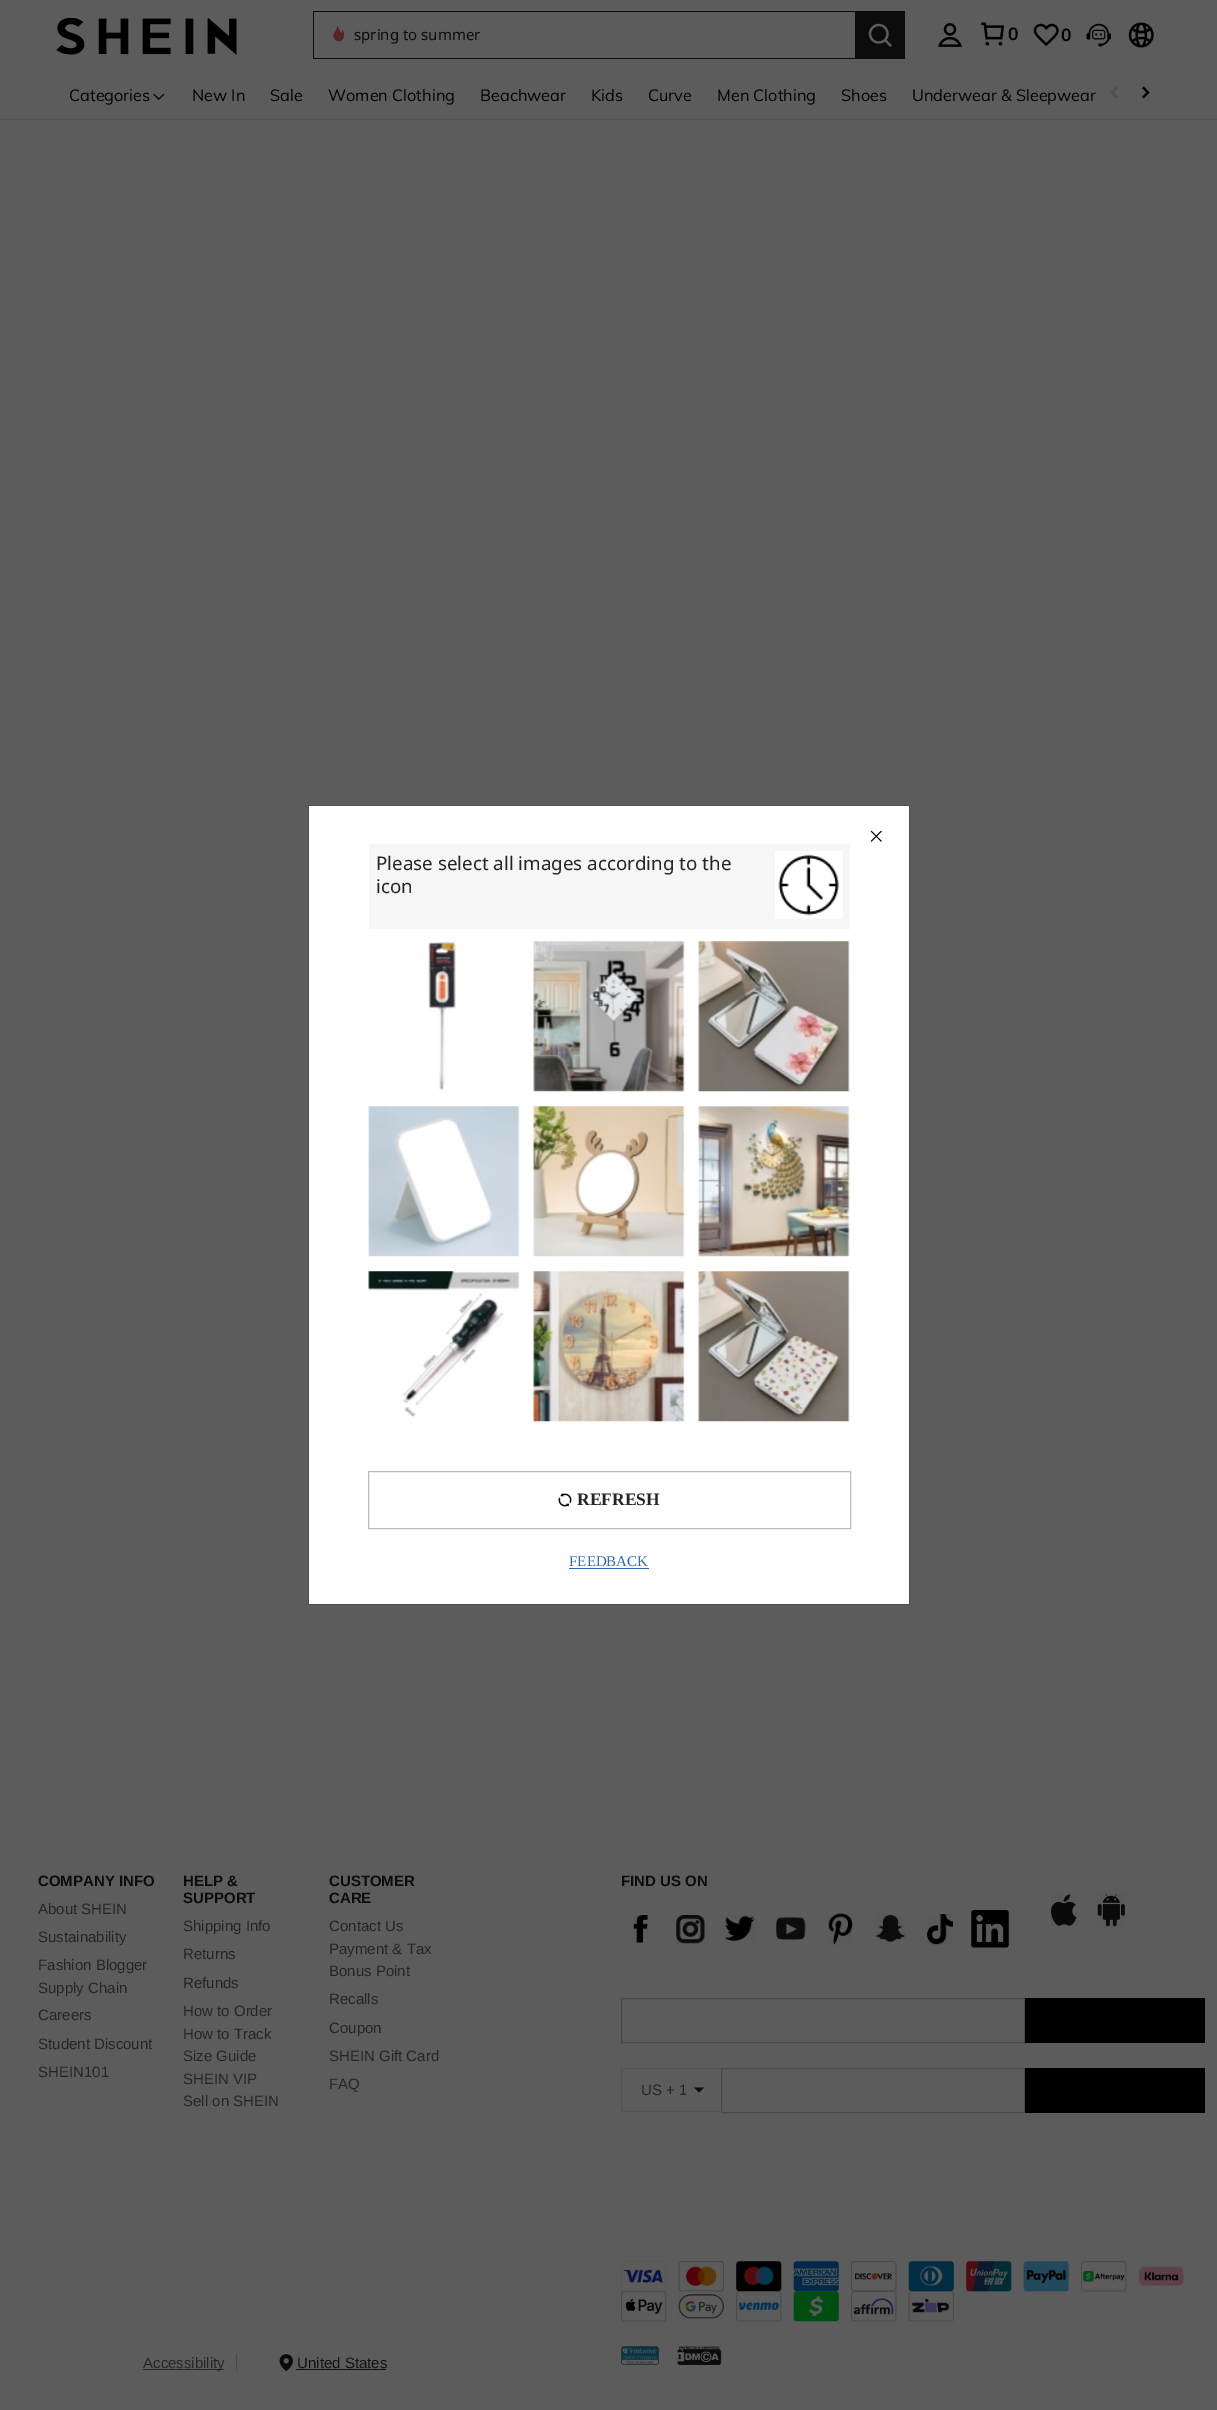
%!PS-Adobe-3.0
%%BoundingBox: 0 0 1217 2410
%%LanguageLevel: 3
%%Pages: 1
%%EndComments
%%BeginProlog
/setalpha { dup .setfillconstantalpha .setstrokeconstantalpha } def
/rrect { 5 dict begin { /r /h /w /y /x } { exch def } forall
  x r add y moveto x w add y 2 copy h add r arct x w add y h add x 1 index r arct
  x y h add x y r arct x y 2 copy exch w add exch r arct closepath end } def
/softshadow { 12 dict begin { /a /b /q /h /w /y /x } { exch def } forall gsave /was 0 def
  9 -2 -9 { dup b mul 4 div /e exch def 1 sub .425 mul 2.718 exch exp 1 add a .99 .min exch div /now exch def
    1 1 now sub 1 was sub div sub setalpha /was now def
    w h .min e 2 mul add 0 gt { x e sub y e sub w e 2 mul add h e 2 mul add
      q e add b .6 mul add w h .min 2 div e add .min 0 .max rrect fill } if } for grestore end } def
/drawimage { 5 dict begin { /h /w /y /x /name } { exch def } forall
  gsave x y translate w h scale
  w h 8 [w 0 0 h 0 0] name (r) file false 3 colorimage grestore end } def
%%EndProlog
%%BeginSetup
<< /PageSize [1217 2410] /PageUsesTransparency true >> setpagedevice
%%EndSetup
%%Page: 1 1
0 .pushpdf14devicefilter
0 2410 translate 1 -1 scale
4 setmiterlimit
0.361 setgray
0 0 1217 2410 rectfill
(images/1.raw) 56 18 181 37 drawimage
0.047 setgray
313 11 542 1 rectfill
313 58 542 1 rectfill
313 11 1 48 rectfill
(images/2.raw) 333 26 12 16 drawimage
855 11 50 48 rectfill
(images/3.raw) 868 23 24 24 drawimage
(images/4.raw) 938 23 24 24 drawimage
(images/5.raw) 981 22 24 24 drawimage
(images/6.raw) 1033 23 26 24 drawimage
(images/7.raw) 1086 23 25 24 drawimage
(images/8.raw) 1128 22 26 26 drawimage
0.322 setgray
0 119 1217 1 rectfill
(images/9.raw) 153 93 12 7 drawimage
(images/10.raw) 1110 86 8 13 drawimage
(images/11.raw) 1142 86 8 13 drawimage
(images/12.raw) 633 1915 15 28 drawimage
(images/13.raw) 676 1915 29 29 drawimage
(images/14.raw) 724 1915 31 26 drawimage
(images/15.raw) 776 1917 30 23 drawimage
(images/16.raw) 828 1913 25 32 drawimage
(images/17.raw) 876 1915 29 27 drawimage
(images/18.raw) 927 1914 26 31 drawimage
(images/19.raw) 971 1910 38 38 drawimage
(images/20.raw) 1051 1894 26 32 drawimage
(images/21.raw) 1097 1893 28 34 drawimage
0.286 setgray
621.5 1998.5 403 44 rectstroke
0 setgray
1025 1998 180 45 rectfill
0.322 setgray
621 2068 100 1 rectfill
621 2111 100 1 rectfill
621 2068 1 45 rectfill
0.047 setgray
newpath 694 2087.5 moveto 704 2087.5 lineto 699 2092.5 lineto closepath fill
0.286 setgray
721.5 2068.5 303 44 rectstroke
0 setgray
1025 2068 180 45 rectfill
(images/22.raw) 621 2261 45 30 drawimage
(images/23.raw) 678 2261 46 31 drawimage
(images/24.raw) 736 2261 46 31 drawimage
(images/25.raw) 793 2261 46 31 drawimage
(images/26.raw) 851 2261 46 31 drawimage
(images/27.raw) 908 2261 46 31 drawimage
(images/28.raw) 966 2261 46 31 drawimage
(images/29.raw) 1023 2261 46 31 drawimage
(images/30.raw) 1081 2261 46 31 drawimage
(images/31.raw) 1138 2266 46 20 drawimage
(images/32.raw) 621 2291 46 31 drawimage
(images/33.raw) 678 2294 46 25 drawimage
(images/34.raw) 736 2291 46 31 drawimage
(images/35.raw) 793 2291 46 31 drawimage
(images/36.raw) 851 2291 46 31 drawimage
(images/37.raw) 908 2291 46 31 drawimage
0.286 setgray
236 2354 1 17 rectfill
0.145 setgray
143 2369 81 1 rectfill
(images/38.raw) 279 2354 14 18 drawimage
0.071 setgray
296 2369 90 1 rectfill
(images/39.raw) 621 2346 38 19 drawimage
(images/40.raw) 677 2346 45 19 drawimage
0 setgray
309 806 600 798 0 0.5 0.3 softshadow
309 806 600 798 0 0.5 0.3 softshadow
1 setgray
309 806 600 798 rectfill
(images/41.raw) 870 830 12 12 drawimage
0.965 setgray
369 844 481 85 rectfill
1 setgray
775 851 68 68 rectfill
(images/42.raw) 778 854 61 62 drawimage
(images/43.raw) 428 942 29 148 drawimage
(images/44.raw) 533 941 152 151 drawimage
(images/45.raw) 698 941 152 151 drawimage
(images/46.raw) 368 1106 152 151 drawimage
(images/47.raw) 533 1106 152 151 drawimage
(images/48.raw) 698 1106 152 151 drawimage
(images/49.raw) 368 1271 152 146 drawimage
(images/50.raw) 533 1271 152 151 drawimage
(images/51.raw) 698 1271 152 151 drawimage
0.733 setgray
368.5 1471.5 482 57 rectstroke
(images/52.raw) 558 1493 14 14 drawimage
0.176 0.408 0.659 setrgbcolor
569 1568 80 1 rectfill
/NotoSans-Regular [15 0 0 -15 0 0] selectfont
0.047 setgray
354 40 moveto (spring to summer) show
/Muli-Bold [17.5 0 0 -17.5 0 0] selectfont
0 setgray
1008 40 moveto (0) show
1061 41 moveto (0) show
/Muli-Regular [16.25 0 0 -16.25 0 0] selectfont
69 101 moveto (Categories) show
192 101 moveto (New In) show
270 101 moveto (Sale) show
328 101 moveto (Women Clothing) show
480 101 moveto (Beachwear) show
591 101 moveto (Kids) show
648 101 moveto (Curve) show
717 101 moveto (Men Clothing) show
841 101 moveto (Shoes) show
912 101 moveto (Underwear & Sleepwear) show
/LiberationSans-Bold [15 0 0 -15 0 0] selectfont
0.047 setgray
38 1886 moveto (COMPANY INFO) show
/LiberationSans-Regular [15 0 0 -15 0 0] selectfont
0.145 setgray
38 1914 moveto (About SHEIN) show
38 1942 moveto (Sustainability) show
38 1970 moveto (Fashion Blogger) show
38 1993 moveto (Supply Chain) show
38 2020 moveto (Careers) show
38 2049 moveto (Student Discount) show
38 2077 moveto (SHEIN101) show
/LiberationSans-Bold [15 0 0 -15 0 0] selectfont
0.047 setgray
183 1886 moveto (HELP &) show
183 1903 moveto (SUPPORT) show
/LiberationSans-Regular [15 0 0 -15 0 0] selectfont
0.145 setgray
183 1931 moveto (Shipping Info) show
183 1959 moveto (Returns) show
183 1988 moveto (Refunds) show
183 2016 moveto (How to Order) show
183 2039 moveto (How to Track) show
183 2061 moveto (Size Guide) show
183 2084 moveto (SHEIN VIP) show
183 2106 moveto (Sell on SHEIN) show
/LiberationSans-Bold [15 0 0 -15 0 0] selectfont
0.047 setgray
329 1886 moveto (CUSTOMER) show
329 1903 moveto (CARE) show
/LiberationSans-Regular [15 0 0 -15 0 0] selectfont
0.145 setgray
329 1931 moveto (Contact Us) show
329 1954 moveto (Payment & Tax) show
329 1976 moveto (Bonus Point) show
329 2004 moveto (Recalls) show
329 2033 moveto (Coupon) show
329 2061 moveto (SHEIN Gift Card) show
329 2089 moveto (FAQ) show
/LiberationSans-Bold [15 0 0 -15 0 0] selectfont
0.047 setgray
621 1886 moveto (FIND US ON) show
/LiberationSans-Regular [15 0 0 -15 0 0] selectfont
0.145 setgray
641 2095 moveto (US + 1) show
143 2368 moveto (Accessibility) show
0.071 setgray
297 2368 moveto (United States) show
/NotoSans-Regular [18.75 0 0 -18.75 0 0] selectfont
0.145 setgray
376 870 moveto (Please select all images according to the) show
376 893 moveto (icon) show
/LiberationSerif-Bold [17.5 0 0 -17.5 0 0] selectfont
577 1505 moveto (REFRESH) show
/LiberationSerif-Regular [15 0 0 -15 0 0] selectfont
0.176 0.408 0.659 setrgbcolor
569 1566 moveto (FEEDBACK) show
.poppdf14devicefilter showpage
%%EOF
